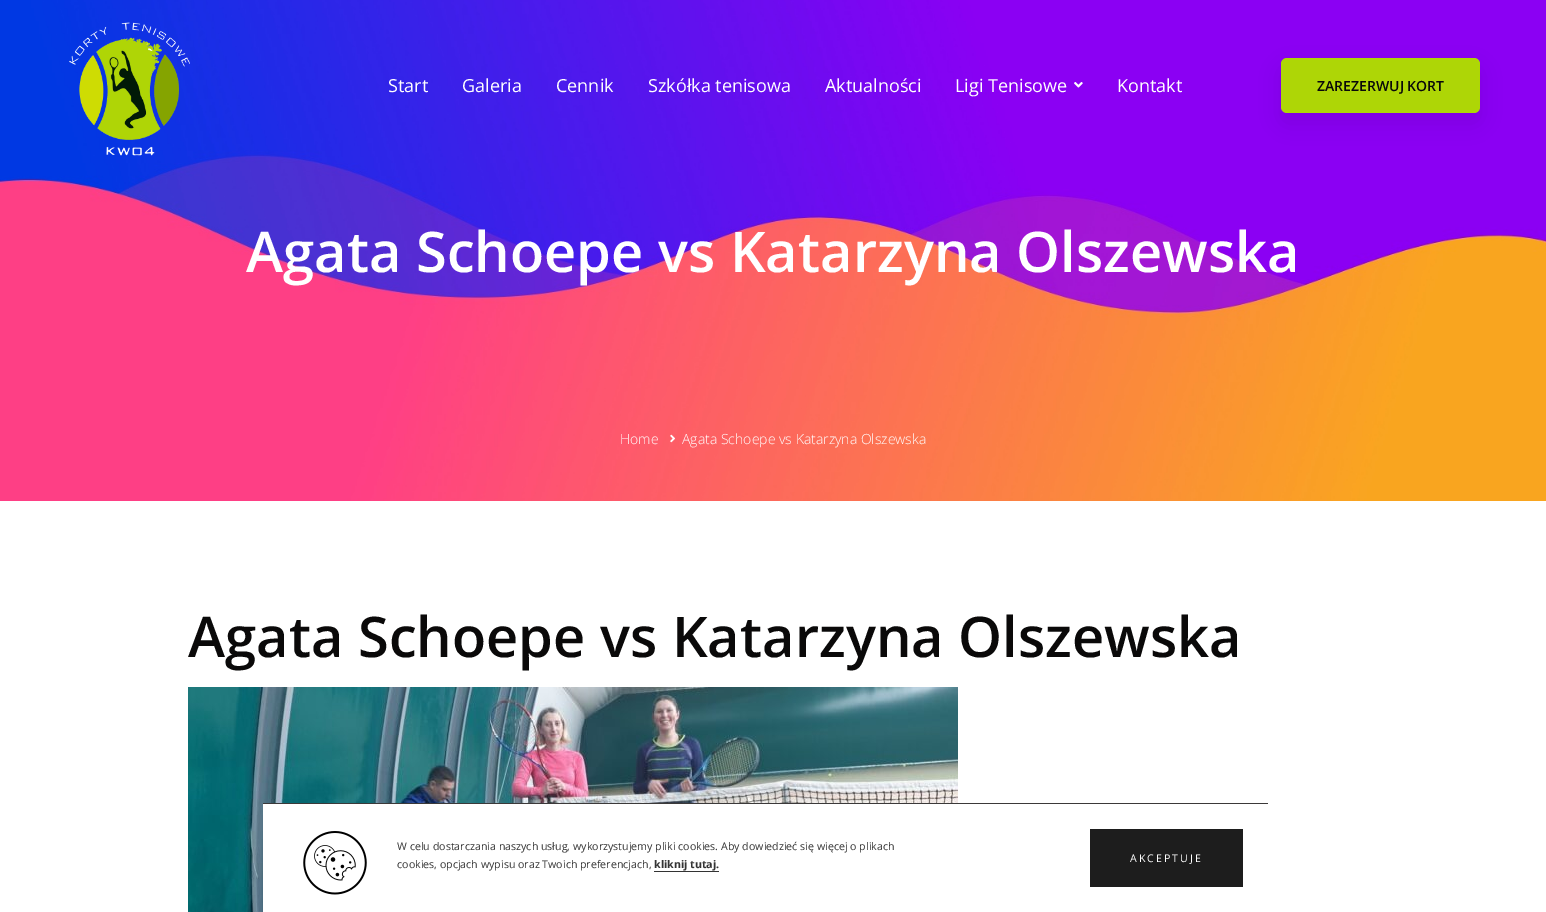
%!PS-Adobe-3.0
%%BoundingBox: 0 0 1546 912
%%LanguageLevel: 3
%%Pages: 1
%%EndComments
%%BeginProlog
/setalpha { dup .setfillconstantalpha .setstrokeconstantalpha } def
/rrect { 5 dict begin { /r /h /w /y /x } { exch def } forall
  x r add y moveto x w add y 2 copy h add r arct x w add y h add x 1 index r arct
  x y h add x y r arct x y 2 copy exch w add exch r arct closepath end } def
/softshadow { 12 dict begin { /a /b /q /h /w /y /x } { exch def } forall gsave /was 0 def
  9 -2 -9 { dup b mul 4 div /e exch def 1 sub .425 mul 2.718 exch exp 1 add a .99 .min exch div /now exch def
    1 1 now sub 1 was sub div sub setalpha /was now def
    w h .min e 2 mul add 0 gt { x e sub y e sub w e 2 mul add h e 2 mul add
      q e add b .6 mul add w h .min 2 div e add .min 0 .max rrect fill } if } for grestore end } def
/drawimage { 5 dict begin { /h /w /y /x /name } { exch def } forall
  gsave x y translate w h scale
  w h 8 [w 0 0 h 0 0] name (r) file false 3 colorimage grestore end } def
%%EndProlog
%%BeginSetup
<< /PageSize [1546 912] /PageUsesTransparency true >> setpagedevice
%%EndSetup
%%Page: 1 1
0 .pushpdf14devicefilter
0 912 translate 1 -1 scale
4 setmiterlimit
1 setgray
0 0 1546 912 rectfill
(images/3.raw) 0 0 1546 501 drawimage
(images/1.raw) 69 22 121 134 drawimage
(images/2.raw) 1074 82 9 6 drawimage
0 setgray
1281 68 199 55 6 10 0.07 softshadow
0.682 0.839 0.024 setrgbcolor
1281 58 199 55 6 rrect fill
(images/4.raw) 670 434 5 9 drawimage
(images/5.raw) 188 687 770 225 drawimage
1 setgray
263 804 695 108 rectfill
0.231 0.224 0.224 setrgbcolor
263 803 1005 1 rectfill
(images/6.raw) 303 831 64 64 drawimage
0.2 setgray
654 871 65 1 rectfill
0.114 setgray
1090 829 153 58 rectfill
/OpenSans-Regular [18 0 0 -18 0 0] selectfont
1 setgray
388 92 moveto (Start) show
462 92 moveto (Galeria) show
556 92 moveto (Cennik) show
648 92 moveto (Szkółka tenisowa) show
825 92 moveto (Aktualności) show
955 92 moveto (Ligi Tenisowe) show
1117 92 moveto (Kontakt) show
/OpenSans-SemiBold [14 0 0 -14 0 0] selectfont
0.039 0.035 0.035 setrgbcolor
1317 91 moveto (ZAREZERWUJ KORT) show
/OpenSans-SemiBold [56 0 0 -56 0 0] selectfont
1 setgray
246 272 moveto (Agata Schoepe vs Katarzyna Olszewska) show
/OpenSans-Light [14 0 0 -14 0 0] selectfont
620 444 moveto (Home) show
682 444 moveto (Agata Schoepe vs Katarzyna Olszewska) show
/OpenSans-SemiBold [56 0 0 -56 0 0] selectfont
0.039 0.035 0.035 setrgbcolor
188 657 moveto (Agata Schoepe vs Katarzyna Olszewska) show
/OpenSans-Regular [10.65 0 0 -10.65 0 0] selectfont
0.2 setgray
397 850 moveto (W celu dostarczania naszych usług, wykorzystujemy pliki cookies. Aby dowiedzieć się więcej o plikach) show
397 868 moveto (cookies, opcjach wypisu oraz Twoich preferencjach,) show
/OpenSans-Bold [10.65 0 0 -10.65 0 0] selectfont
654 868 moveto (kliknij tutaj.) show
/OpenSans-Regular [10.65 0 0 -10.65 0 0] selectfont
1 setgray
1130 862 moveto 2 0 (AKCEPTUJE) ashow
.poppdf14devicefilter showpage
%%EOF
